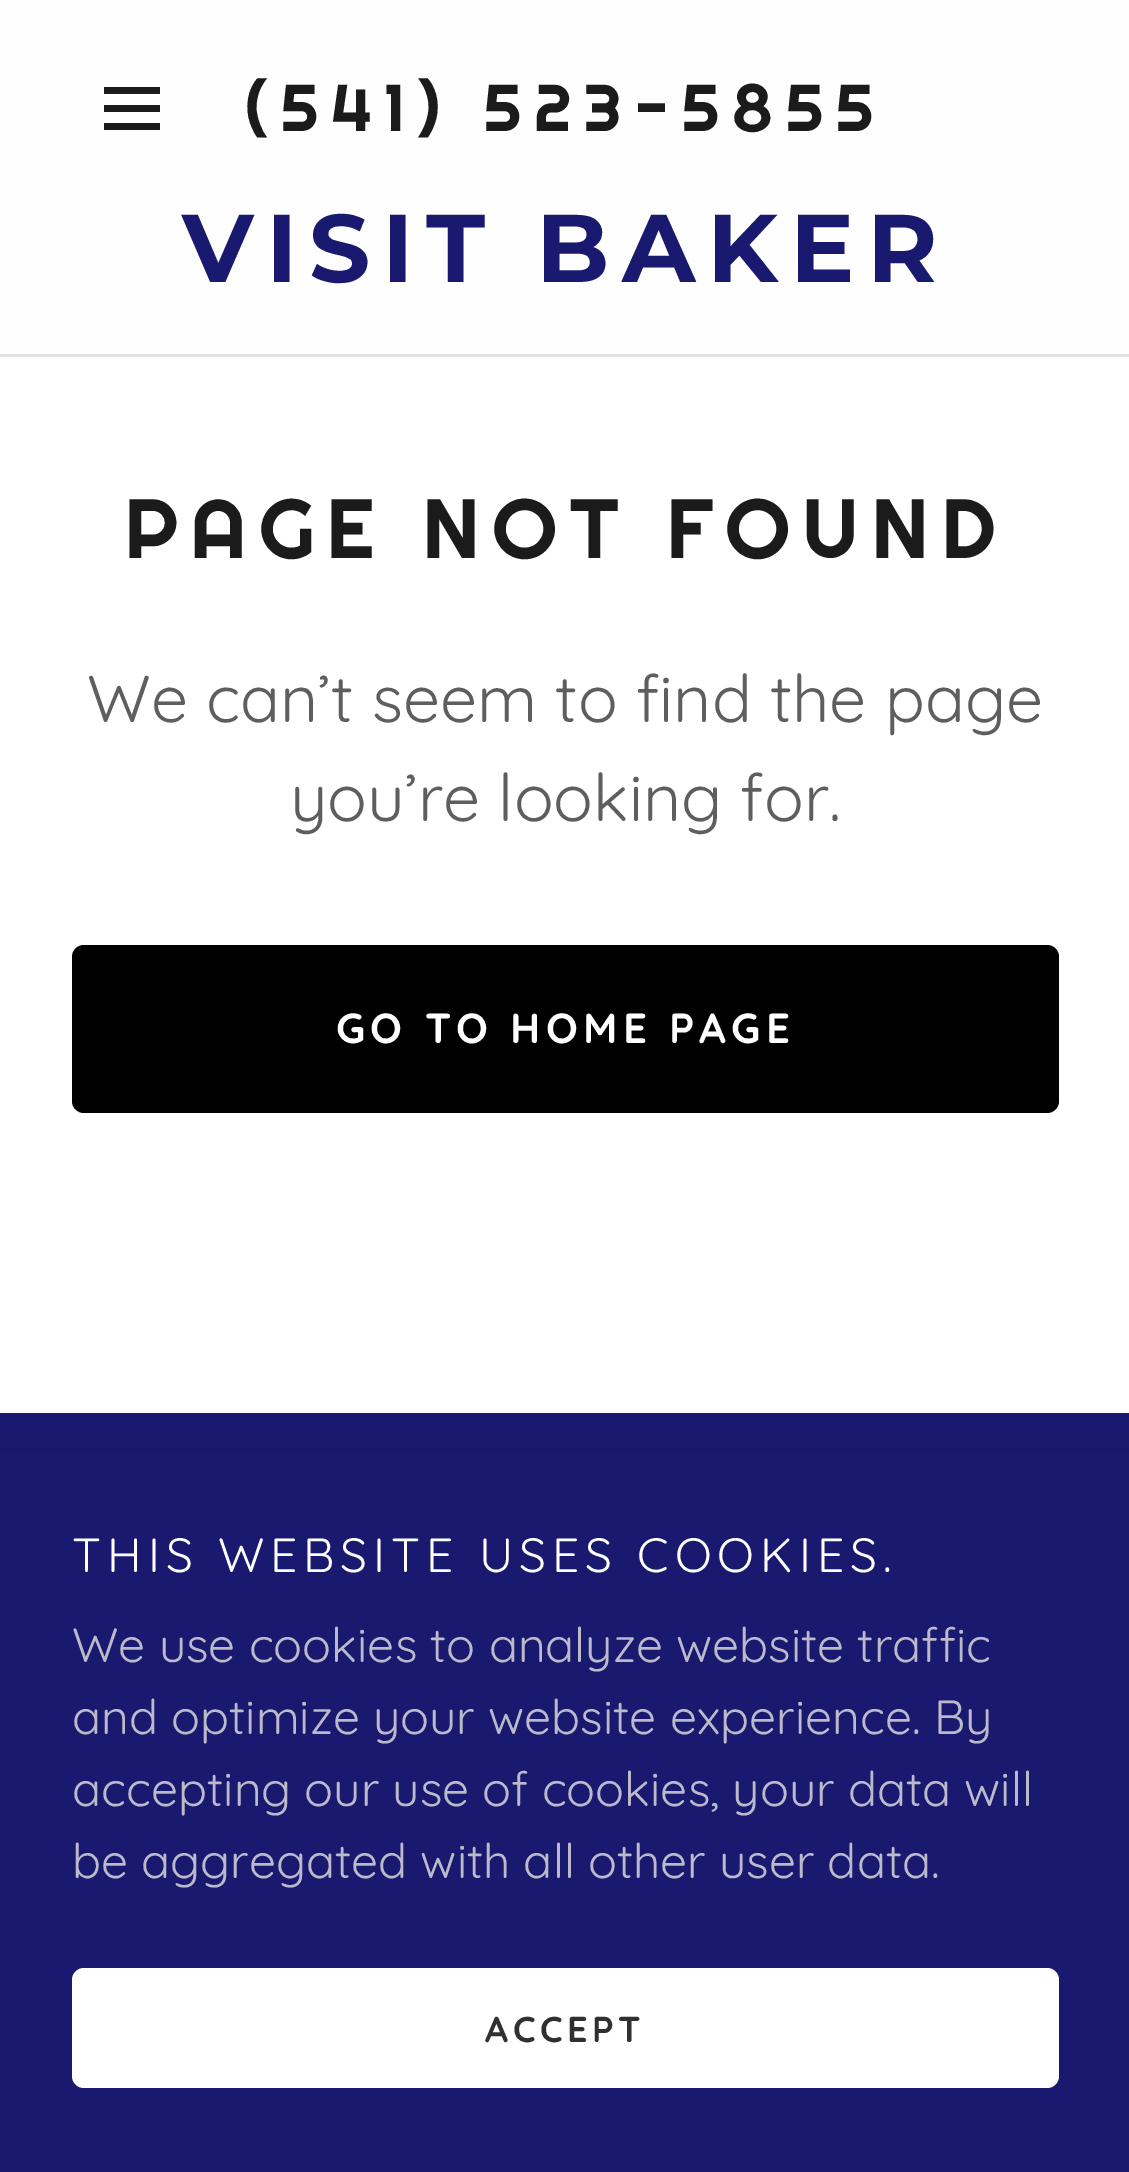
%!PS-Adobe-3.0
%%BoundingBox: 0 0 1129 2172
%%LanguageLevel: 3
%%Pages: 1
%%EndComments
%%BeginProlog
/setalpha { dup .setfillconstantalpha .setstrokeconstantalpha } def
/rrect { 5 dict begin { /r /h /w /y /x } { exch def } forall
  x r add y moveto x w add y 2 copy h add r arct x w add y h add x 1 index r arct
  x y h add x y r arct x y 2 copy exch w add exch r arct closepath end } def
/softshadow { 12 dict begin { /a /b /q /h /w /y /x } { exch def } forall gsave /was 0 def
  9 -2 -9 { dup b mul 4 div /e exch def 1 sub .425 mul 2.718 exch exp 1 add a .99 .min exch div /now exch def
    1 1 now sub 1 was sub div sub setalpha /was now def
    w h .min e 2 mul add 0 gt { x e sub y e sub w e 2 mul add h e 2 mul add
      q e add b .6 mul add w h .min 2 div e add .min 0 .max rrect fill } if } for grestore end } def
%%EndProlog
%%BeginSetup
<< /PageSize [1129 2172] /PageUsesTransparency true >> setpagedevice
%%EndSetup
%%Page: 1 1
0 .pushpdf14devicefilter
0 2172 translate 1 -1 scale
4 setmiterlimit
0.098 0.098 0.439 setrgbcolor
0 0 1129 2172 rectfill
0.996 setgray
0 0 1129 354 rectfill
0.106 setgray
104 87 56 7 rectfill
104 105 56 7 rectfill
104 123 56 7 rectfill
0.886 setgray
0 354 1129 3 rectfill
1 setgray
0 357 1129 1056 rectfill
0 setgray
72 945 987 168 12 rrect fill
0 1458 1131 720 0 9 0.3 softshadow
0.098 0.098 0.439 setrgbcolor
0 1452 1129 720 rectfill
1 setgray
72 1968 987 120 12 rrect fill
/Righteous-Regular [66 0 0 -66 0 0] selectfont
0.106 setgray
245 131 moveto 12 0 (\(541\) 523-5855) ashow
/Montserrat-Bold [96 0 0 -96 0 0] selectfont
0.098 0.098 0.439 setrgbcolor
182 282 moveto 12 0 (VISIT BAKER) ashow
/Righteous-Regular [84 0 0 -84 0 0] selectfont
0.106 setgray
124 558 moveto 12 0 (PAGE NOT FOUND) ashow
/Quicksand-Regular [66 0 0 -66 0 0] selectfont
0.369 setgray
87 722 moveto (We can’t seem to find the page) show
290 821 moveto (you’re looking for.) show
/Quicksand-Bold [42 0 0 -42 0 0] selectfont
1 setgray
336 1043 moveto 5.25 0 (GO TO HOME PAGE) ashow
/Quicksand-Regular [48 0 0 -48 0 0] selectfont
72 1572 moveto 6 0 (THIS WEBSITE USES COOKIES.) ashow
0.729 0.729 0.796 setrgbcolor
72 1662 moveto (We use cookies to analyze website traffic) show
72 1734 moveto (and optimize your website experience. By) show
72 1806 moveto (accepting our use of cookies, your data will) show
72 1878 moveto (be aggregated with all other user data.) show
/Quicksand-Bold [36 0 0 -36 0 0] selectfont
0.188 setgray
485 2042 moveto 4.5 0 (ACCEPT) ashow
.poppdf14devicefilter showpage
%%EOF
